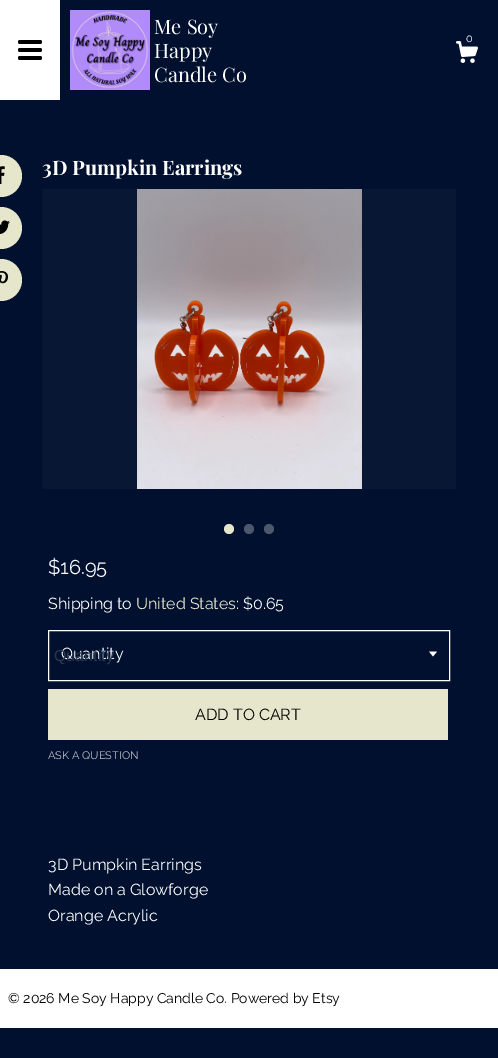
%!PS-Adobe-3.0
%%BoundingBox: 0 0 498 1058
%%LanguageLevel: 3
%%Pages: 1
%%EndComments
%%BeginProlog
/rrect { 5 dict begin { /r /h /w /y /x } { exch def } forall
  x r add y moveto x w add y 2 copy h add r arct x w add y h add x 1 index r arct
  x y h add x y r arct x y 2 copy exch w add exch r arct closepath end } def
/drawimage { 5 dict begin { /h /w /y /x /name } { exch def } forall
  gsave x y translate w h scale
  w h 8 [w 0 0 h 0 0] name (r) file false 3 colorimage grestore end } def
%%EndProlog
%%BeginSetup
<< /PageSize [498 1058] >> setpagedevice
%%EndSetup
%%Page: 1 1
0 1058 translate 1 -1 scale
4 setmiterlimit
0 0.063 0.18 setrgbcolor
0 0 498 1058 rectfill
1 setgray
0 0 60 100 rectfill
0 setgray
18 40 24 4 2 rrect fill
18 48 24 4 2 rrect fill
18 56 24 4 2 rrect fill
(images/1.raw) 70 10 80 80 drawimage
(images/2.raw) 456 41 22 22 drawimage
0.898 0.902 0.796 setrgbcolor
newpath 1 176 21 0 360 arc closepath fill
0 setgray
0 165 7 19 rectfill
(images/3.raw) 0 165 7 19 drawimage
0.898 0.902 0.796 setrgbcolor
newpath 1 228 21 0 360 arc closepath fill
(images/4.raw) 0 220 10 14 drawimage
newpath 1 280 21 0 360 arc closepath fill
(images/5.raw) 0 271 9 13 drawimage
0.031 0.09 0.204 setrgbcolor
42 189 414 300 rectfill
(images/6.raw) 137 189 225 300 drawimage
0.898 0.902 0.796 setrgbcolor
newpath 229 529 5 0 360 arc closepath fill
0.302 0.345 0.427 setrgbcolor
newpath 249 529 5 0 360 arc closepath fill
newpath 269 529 5 0 360 arc closepath fill
1 setgray
48.5 630.5 401 50 rectstroke
(images/7.raw) 429 651 8 6 drawimage
0.898 0.902 0.796 setrgbcolor
48 689 400 51 rectfill
1 setgray
0 969 498 59 rectfill
/PlayfairDisplay-Regular [20 0 0 -20 0 0] selectfont
154 34 moveto (Me Soy) show
154 58 moveto (Happy) show
154 82 moveto (Candle Co) show
/Raleway-Regular [11 0 0 -11 0 0] selectfont
466 42 moveto (0) show
/PlayfairDisplay-Bold [20 0 0 -20 0 0] selectfont
42 175 moveto (3D Pumpkin Earrings) show
/Raleway-Regular [20 0 0 -20 0 0] selectfont
48 574 moveto ($16.95) show
/Raleway-Regular [16 0 0 -16 0 0] selectfont
48 609 moveto (Shipping to) show
0.898 0.902 0.796 setrgbcolor
136 609 moveto (United States) show
1 setgray
236 609 moveto (: $0.65) show
61 659 moveto (Quantity) show
/LiberationSans-Regular [16 0 0 -16 0 0] selectfont
0.165 0.22 0.318 setrgbcolor
54 661 moveto (Quantity) show
/Raleway-Regular [16 0 0 -16 0 0] selectfont
0 setgray
195 720 moveto (ADD TO CART) show
/Raleway-Regular [11 0 0 -11 0 0] selectfont
0.749 0.765 0.796 setrgbcolor
48 759 moveto (ASK A QUESTION) show
/Raleway-Regular [16 0 0 -16 0 0] selectfont
1 setgray
48 870 moveto (3D Pumpkin Earrings) show
48 895 moveto (Made on a Glowforge) show
48 921 moveto (Orange Acrylic) show
/Raleway-Regular [14 0 0 -14 0 0] selectfont
0 setgray
8 1003 moveto (© 2026 Me Soy Happy Candle Co. Powered by Etsy) show
showpage
%%EOF
